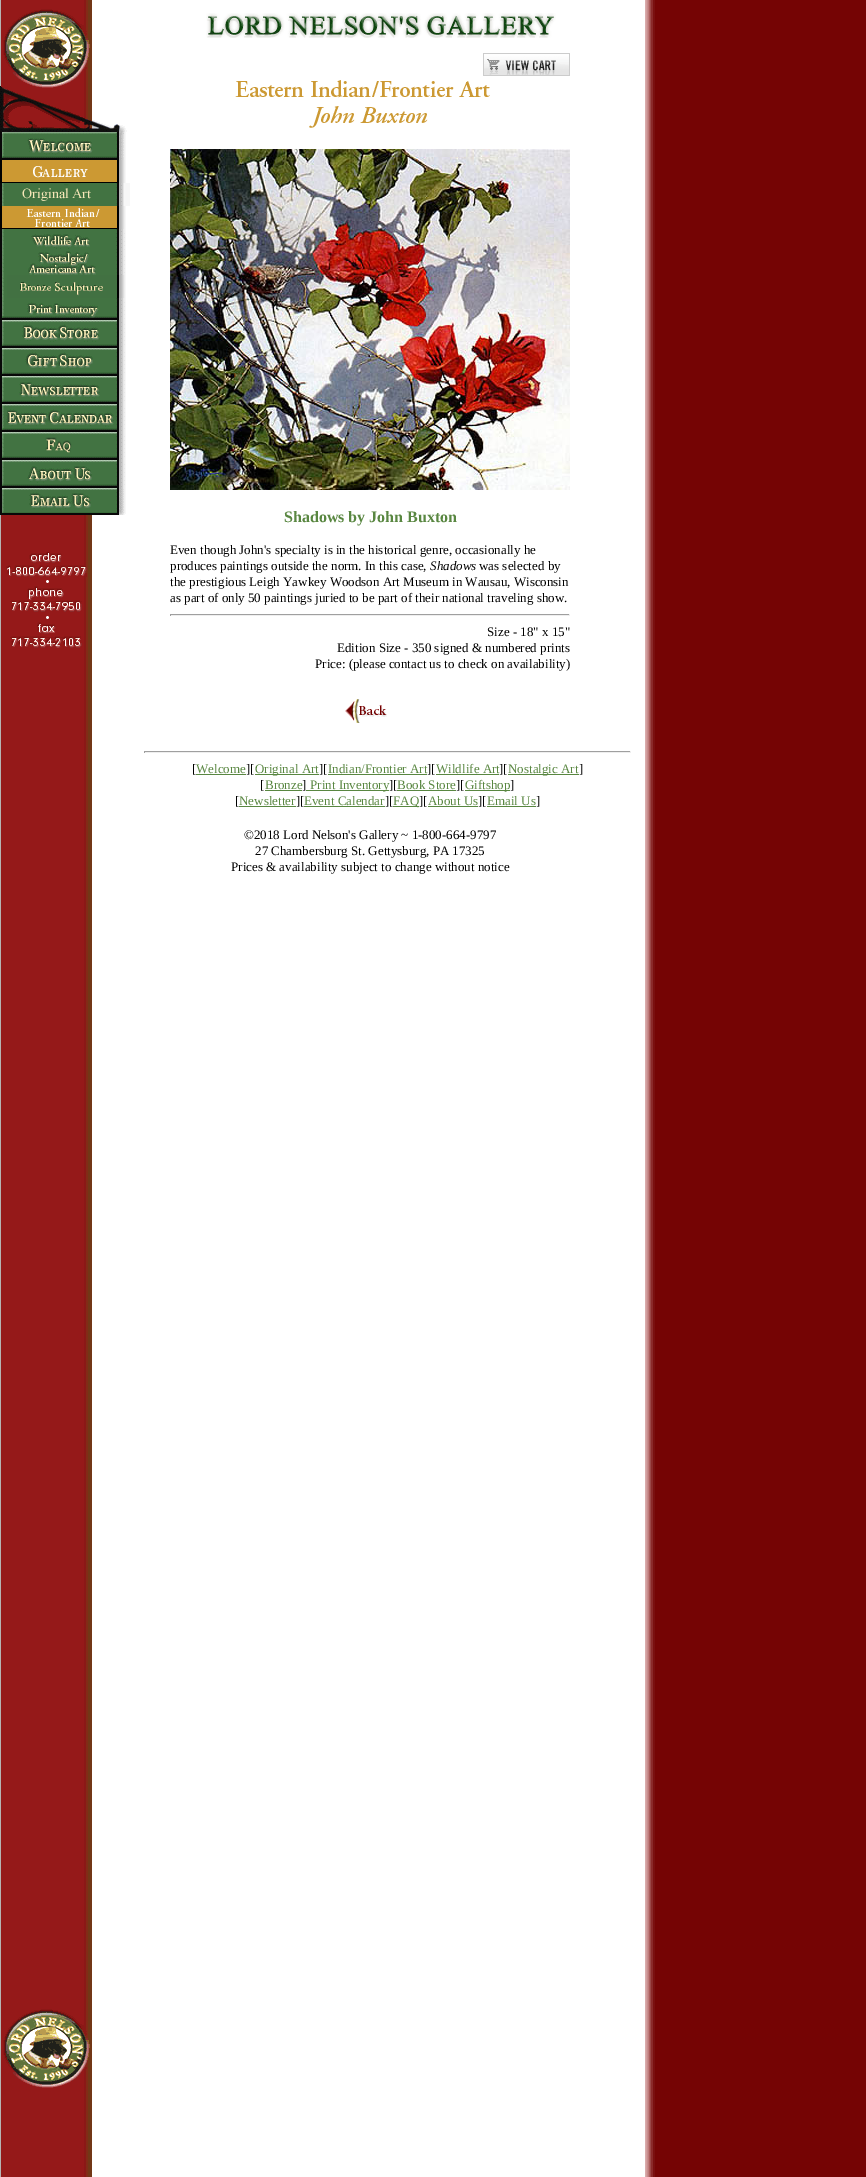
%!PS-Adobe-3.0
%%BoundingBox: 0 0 866 2177
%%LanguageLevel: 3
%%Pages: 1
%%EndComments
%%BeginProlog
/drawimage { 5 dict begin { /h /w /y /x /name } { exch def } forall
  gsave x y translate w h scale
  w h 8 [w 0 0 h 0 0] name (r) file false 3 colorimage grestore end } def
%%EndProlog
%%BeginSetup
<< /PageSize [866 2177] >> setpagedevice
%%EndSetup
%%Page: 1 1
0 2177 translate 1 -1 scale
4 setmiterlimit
1 setgray
0 0 866 2177 rectfill
(images/1.raw) 0 0 866 2177 drawimage
(images/2.raw) 0 86 127 46 drawimage
(images/3.raw) 0 132 126 28 drawimage
(images/4.raw) 0 160 126 23 drawimage
(images/5.raw) 0 183 130 23 drawimage
(images/6.raw) 0 206 126 23 drawimage
(images/7.raw) 0 229 126 23 drawimage
(images/8.raw) 0 252 126 23 drawimage
(images/9.raw) 0 275 126 23 drawimage
(images/10.raw) 0 298 126 22 drawimage
(images/11.raw) 0 320 126 28 drawimage
(images/12.raw) 0 348 126 28 drawimage
(images/13.raw) 0 376 126 28 drawimage
(images/14.raw) 0 404 126 28 drawimage
(images/15.raw) 0 432 126 28 drawimage
(images/16.raw) 0 460 126 28 drawimage
(images/17.raw) 0 488 126 27 drawimage
(images/18.raw) 206 13 350 25 drawimage
(images/19.raw) 483 53 87 23 drawimage
(images/20.raw) 235 80 255 18 drawimage
(images/21.raw) 309 106 119 22 drawimage
(images/22.raw) 170 149 400 341 drawimage
0.624 setgray
170 614 400 1 rectfill
0.933 setgray
569 614 1 2 rectfill
170 615 400 1 rectfill
0.624 setgray
170 614 1 2 rectfill
(images/23.raw) 345 699 42 24 drawimage
144 751 487 1 rectfill
0.933 setgray
630 751 1 2 rectfill
144 752 487 1 rectfill
0.624 setgray
144 751 1 2 rectfill
0.349 0.529 0.255 setrgbcolor
196 774 50 1 rectfill
255 774 64 1 rectfill
328 774 99 1 rectfill
436 774 63 1 rectfill
508 774 71 1 rectfill
265 790 37 1 rectfill
306 790 83 1 rectfill
397 790 59 1 rectfill
465 790 45 1 rectfill
239 806 57 1 rectfill
304 806 81 1 rectfill
393 806 26 1 rectfill
428 806 50 1 rectfill
487 806 49 1 rectfill
/LiberationSerif-Bold [16 0 0 -16 0 0] selectfont
284 522 moveto (Shadows by John Buxton) show
/LiberationSerif-Regular [13 0 0 -13 0 0] selectfont
0 setgray
170 554 moveto (Even though John's specialty is in the historical genre, occasionally he) show
170 570 moveto (produces paintings outside the norm. In this case,) show
/LiberationSerif-Italic [13 0 0 -13 0 0] selectfont
430 570 moveto (Shadows) show
/LiberationSerif-Regular [13 0 0 -13 0 0] selectfont
479 570 moveto (was selected by) show
170 586 moveto (the prestigious Leigh Yawkey Woodson Art Museum in Wausau, Wisconsin) show
170 602 moveto (as part of only 50 paintings juried to be part of their national traveling show.) show
487 636 moveto (Size - 18" x 15") show
337 652 moveto (Edition Size - 350 signed & numbered prints) show
315 668 moveto (Price: \(please contact us to check on availability\)) show
192 773 moveto ([) show
0.349 0.529 0.255 setrgbcolor
196 773 moveto (Welcome) show
0 setgray
246 773 moveto (][) show
0.349 0.529 0.255 setrgbcolor
255 773 moveto (Original Art) show
0 setgray
319 773 moveto (][) show
0.349 0.529 0.255 setrgbcolor
328 773 moveto (Indian/Frontier Art) show
0 setgray
427 773 moveto (][) show
0.349 0.529 0.255 setrgbcolor
436 773 moveto (Wildlife Art) show
0 setgray
499 773 moveto (][) show
0.349 0.529 0.255 setrgbcolor
508 773 moveto (Nostalgic Art) show
0 setgray
579 773 moveto (]) show
260 789 moveto ([) show
0.349 0.529 0.255 setrgbcolor
265 789 moveto (Bronze) show
0 setgray
302 789 moveto (]) show
0.349 0.529 0.255 setrgbcolor
310 789 moveto (Print Inventory) show
0 setgray
389 789 moveto (][) show
0.349 0.529 0.255 setrgbcolor
397 789 moveto (Book Store) show
0 setgray
456 789 moveto (][) show
0.349 0.529 0.255 setrgbcolor
465 789 moveto (Giftshop) show
0 setgray
510 789 moveto (]) show
235 805 moveto ([) show
0.349 0.529 0.255 setrgbcolor
239 805 moveto (Newsletter) show
0 setgray
296 805 moveto (][) show
0.349 0.529 0.255 setrgbcolor
304 805 moveto (Event Calendar) show
0 setgray
385 805 moveto (][) show
0.349 0.529 0.255 setrgbcolor
393 805 moveto (FAQ) show
0 setgray
419 805 moveto (][) show
0.349 0.529 0.255 setrgbcolor
428 805 moveto (About Us) show
0 setgray
478 805 moveto (][) show
0.349 0.529 0.255 setrgbcolor
487 805 moveto (Email Us) show
0 setgray
536 805 moveto (]) show
244 839 moveto (©2018 Lord Nelson's Gallery ~ 1-800-664-9797) show
255 855 moveto (27 Chambersburg St. Gettysburg, PA 17325) show
231 871 moveto (Prices & availability subject to change without notice) show
showpage
%%EOF
